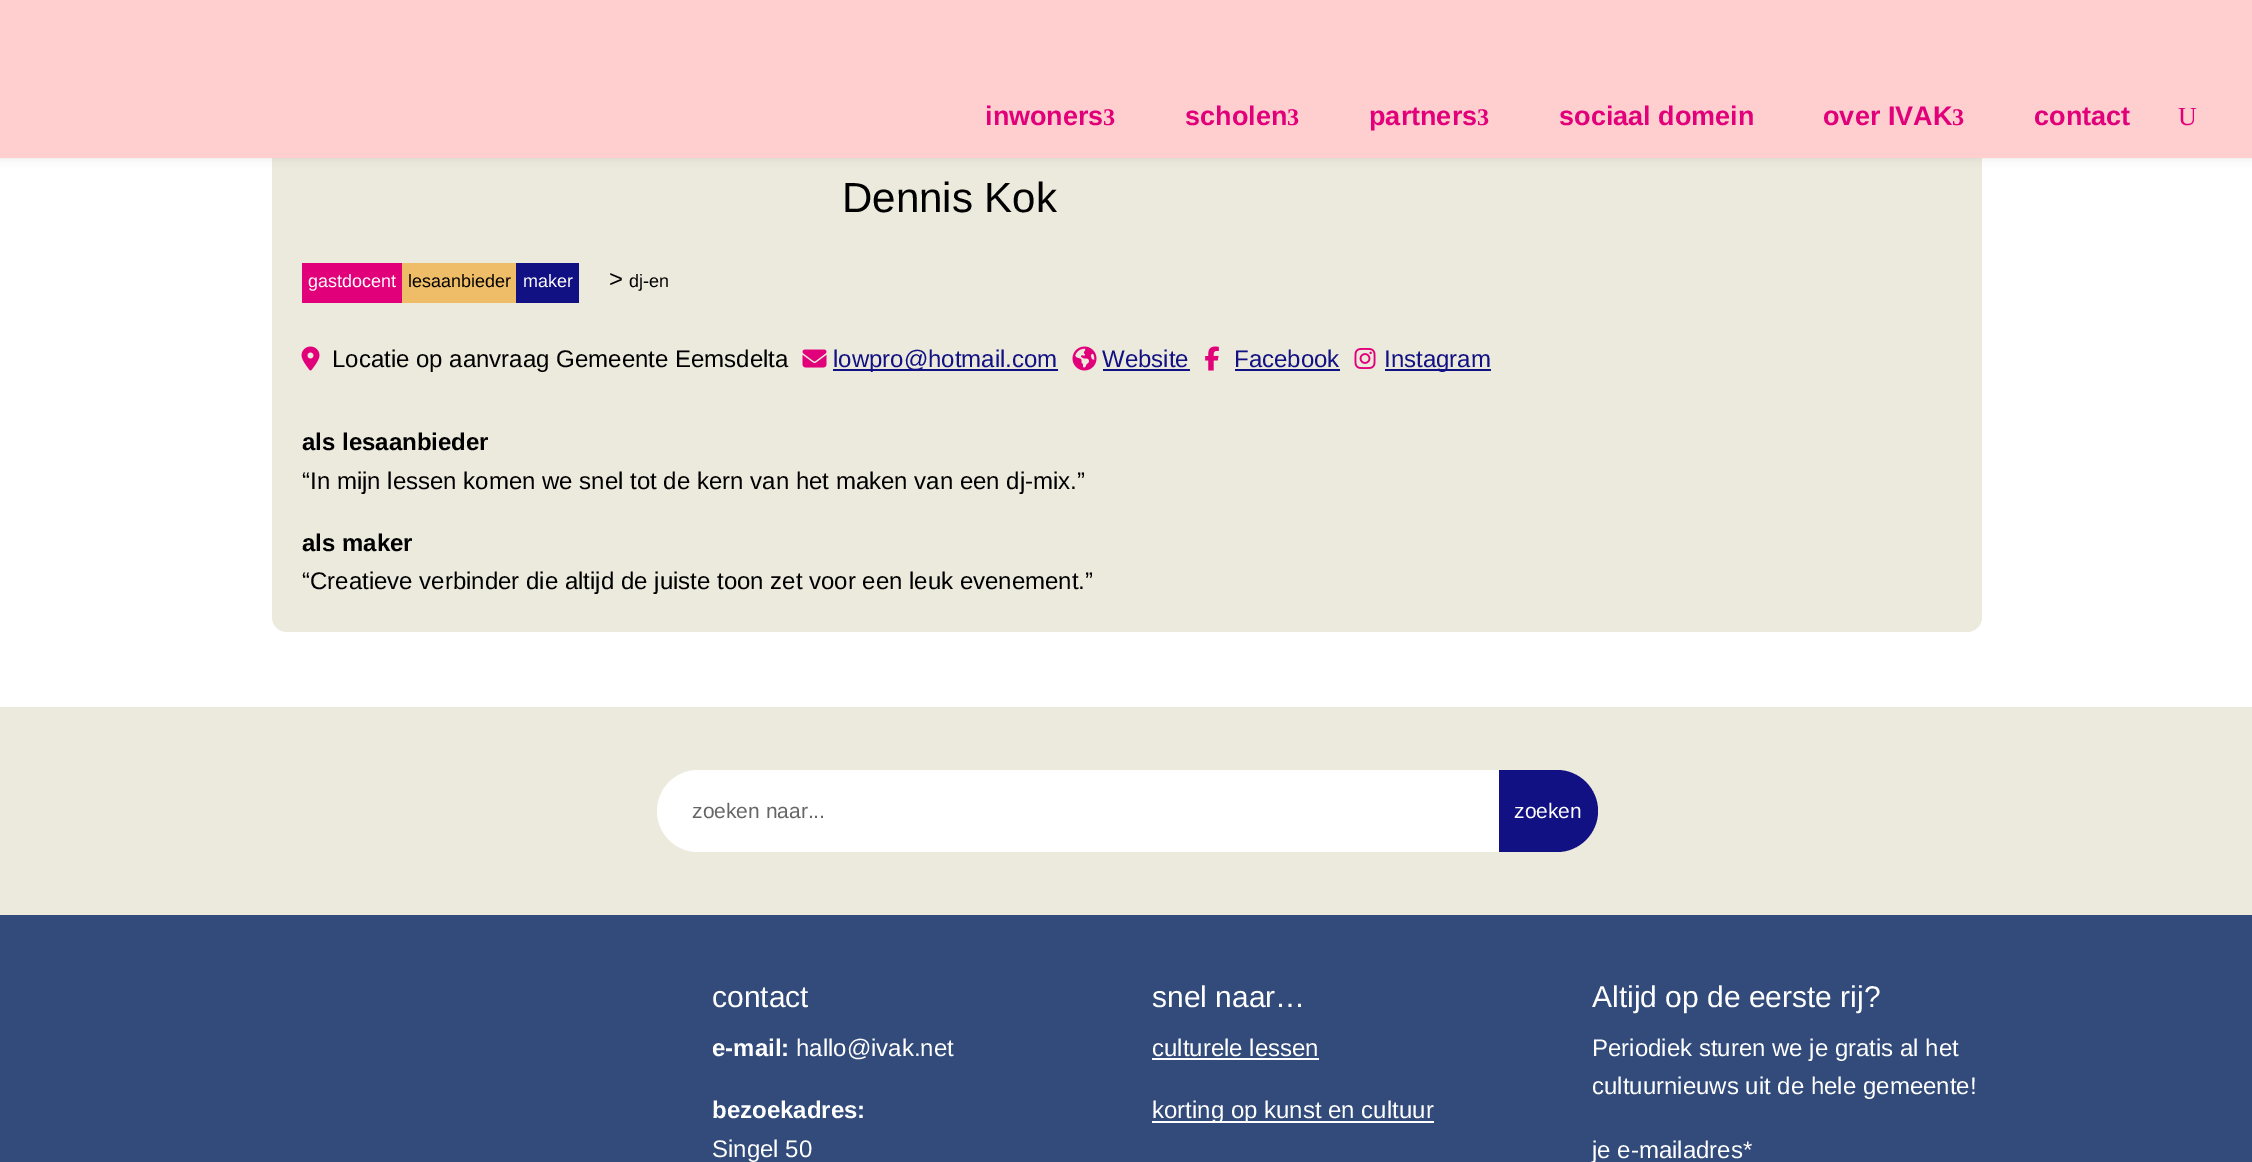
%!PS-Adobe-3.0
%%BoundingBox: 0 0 2252 1162
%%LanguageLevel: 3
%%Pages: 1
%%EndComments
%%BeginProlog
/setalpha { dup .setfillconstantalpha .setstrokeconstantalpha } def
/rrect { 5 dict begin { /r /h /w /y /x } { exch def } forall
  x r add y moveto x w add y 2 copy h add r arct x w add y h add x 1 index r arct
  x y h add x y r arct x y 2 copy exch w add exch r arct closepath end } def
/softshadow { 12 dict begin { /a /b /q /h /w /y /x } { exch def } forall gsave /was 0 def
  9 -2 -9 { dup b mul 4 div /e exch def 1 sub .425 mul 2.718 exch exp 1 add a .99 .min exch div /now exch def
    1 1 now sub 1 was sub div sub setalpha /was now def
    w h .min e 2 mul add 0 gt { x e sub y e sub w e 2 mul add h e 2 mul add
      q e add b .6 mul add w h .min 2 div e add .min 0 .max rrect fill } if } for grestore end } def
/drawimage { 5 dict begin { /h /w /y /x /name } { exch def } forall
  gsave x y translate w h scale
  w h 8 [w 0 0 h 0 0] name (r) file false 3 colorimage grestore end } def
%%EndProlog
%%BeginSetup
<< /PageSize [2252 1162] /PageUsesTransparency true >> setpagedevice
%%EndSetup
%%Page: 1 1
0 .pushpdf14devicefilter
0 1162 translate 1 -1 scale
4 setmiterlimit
1 setgray
0 0 2252 1162 rectfill
0.925 0.914 0.867 setrgbcolor
272 128 1710 504 15 rrect fill
0 setgray
0 0 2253 158 0 5 0.1 softshadow
1 0.812 0.812 setrgbcolor
0 0 2252 158 rectfill
0.882 0 0.478 setrgbcolor
302 263 100 40 rectfill
0.937 0.741 0.404 setrgbcolor
402 263 114 40 rectfill
0.067 0.067 0.514 setrgbcolor
516 263 63 40 rectfill
(images/1.raw) 301 346 19 25 drawimage
(images/2.raw) 802 349 25 19 drawimage
833 369 225 2 rectfill
(images/3.raw) 1072 346 25 25 drawimage
1103 369 87 2 rectfill
(images/4.raw) 1205 346 14 25 drawimage
1235 369 105 2 rectfill
(images/5.raw) 1354 348 22 21 drawimage
1385 369 106 2 rectfill
0.925 0.914 0.867 setrgbcolor
0 707 2252 208 rectfill
1 setgray
newpath 698 770 moveto 1499 770 lineto 1499 852 lineto 698 852 lineto 675.5 852 657 833.5 657 811 curveto 657 788.5 675.5 770 698 770 curveto closepath fill
0.067 0.067 0.514 setrgbcolor
newpath 1499 770 moveto 1557 770 lineto 1579.5 770 1598 788.5 1598 811 curveto 1598 833.5 1579.5 852 1557 852 curveto 1499 852 lineto closepath fill
0.196 0.294 0.478 setrgbcolor
0 915 2252 247 rectfill
1 setgray
1152 1058 167 2 rectfill
1152 1121 282 2 rectfill
/LiberationSans-Bold [27 0 0 -27 0 0] selectfont
0.882 0 0.478 setrgbcolor
985 125 moveto (inwoners) show
/LiberationSerif-Bold [24 0 0 -24 0 0] selectfont
1103 125 moveto (3) show
/LiberationSans-Bold [27 0 0 -27 0 0] selectfont
1185 125 moveto (scholen) show
/LiberationSerif-Bold [24 0 0 -24 0 0] selectfont
1287 125 moveto (3) show
/LiberationSans-Bold [27 0 0 -27 0 0] selectfont
1369 125 moveto (partners) show
/LiberationSerif-Bold [24 0 0 -24 0 0] selectfont
1477 125 moveto (3) show
/LiberationSans-Bold [27 0 0 -27 0 0] selectfont
1559 125 moveto (sociaal domein) show
1823 125 moveto (over IVAK) show
/LiberationSerif-Bold [24 0 0 -24 0 0] selectfont
1952 125 moveto (3) show
/LiberationSans-Bold [27 0 0 -27 0 0] selectfont
2034 125 moveto (contact) show
/LiberationSerif-Regular [26 0 0 -26 0 0] selectfont
2178 125 moveto (U) show
/LiberationSans-Regular [42 0 0 -42 0 0] selectfont
0 setgray
842 212 moveto (Dennis Kok) show
/LiberationSans-Regular [18 0 0 -18 0 0] selectfont
1 setgray
308 287 moveto (gastdocent) show
0 setgray
408 287 moveto (lesaanbieder) show
1 setgray
523 287 moveto (maker) show
/LiberationSans-Regular [24 0 0 -24 0 0] selectfont
0 setgray
609 287 moveto (>) show
/LiberationSans-Regular [18 0 0 -18 0 0] selectfont
629 287 moveto (dj-en) show
/LiberationSans-Regular [24 0 0 -24 0 0] selectfont
332 367 moveto (Locatie op aanvraag Gemeente Eemsdelta) show
0.067 0.067 0.514 setrgbcolor
833 367 moveto (lowpro@hotmail.com) show
1102 367 moveto (Website) show
1234 367 moveto (Facebook) show
1384 367 moveto (Instagram) show
/LiberationSans-Bold [24 0 0 -24 0 0] selectfont
0 setgray
302 450 moveto (als lesaanbieder) show
/LiberationSans-Regular [24 0 0 -24 0 0] selectfont
302 489 moveto (“In mijn lessen komen we snel tot de kern van het maken van een dj-mix.”) show
/LiberationSans-Bold [24 0 0 -24 0 0] selectfont
302 551 moveto (als maker) show
/LiberationSans-Regular [24 0 0 -24 0 0] selectfont
302 589 moveto (“Creatieve verbinder die altijd de juiste toon zet voor een leuk evenement.”) show
/LiberationSans-Regular [21 0 0 -21 0 0] selectfont
0.4 setgray
692 818 moveto (zoeken naar...) show
1 setgray
1514 818 moveto (zoeken) show
/LiberationSans-Regular [30 0 0 -30 0 0] selectfont
712 1007 moveto (contact) show
/LiberationSans-Bold [24 0 0 -24 0 0] selectfont
712 1056 moveto (e-mail:) show
/LiberationSans-Regular [24 0 0 -24 0 0] selectfont
796 1056 moveto (hallo@ivak.net) show
/LiberationSans-Bold [24 0 0 -24 0 0] selectfont
712 1118 moveto (bezoekadres:) show
/LiberationSans-Regular [24 0 0 -24 0 0] selectfont
712 1157 moveto (Singel 50) show
/LiberationSans-Regular [30 0 0 -30 0 0] selectfont
1152 1007 moveto (snel naar…) show
/LiberationSans-Regular [24 0 0 -24 0 0] selectfont
1152 1056 moveto (culturele lessen) show
1152 1118 moveto (korting op kunst en cultuur) show
/LiberationSans-Regular [30 0 0 -30 0 0] selectfont
1592 1007 moveto (Altijd op de eerste rij?) show
/LiberationSans-Regular [24 0 0 -24 0 0] selectfont
1592 1056 moveto (Periodiek sturen we je gratis al het) show
1592 1094 moveto (cultuurnieuws uit de hele gemeente!) show
1592 1158 moveto (je e-mailadres*) show
.poppdf14devicefilter showpage
%%EOF
